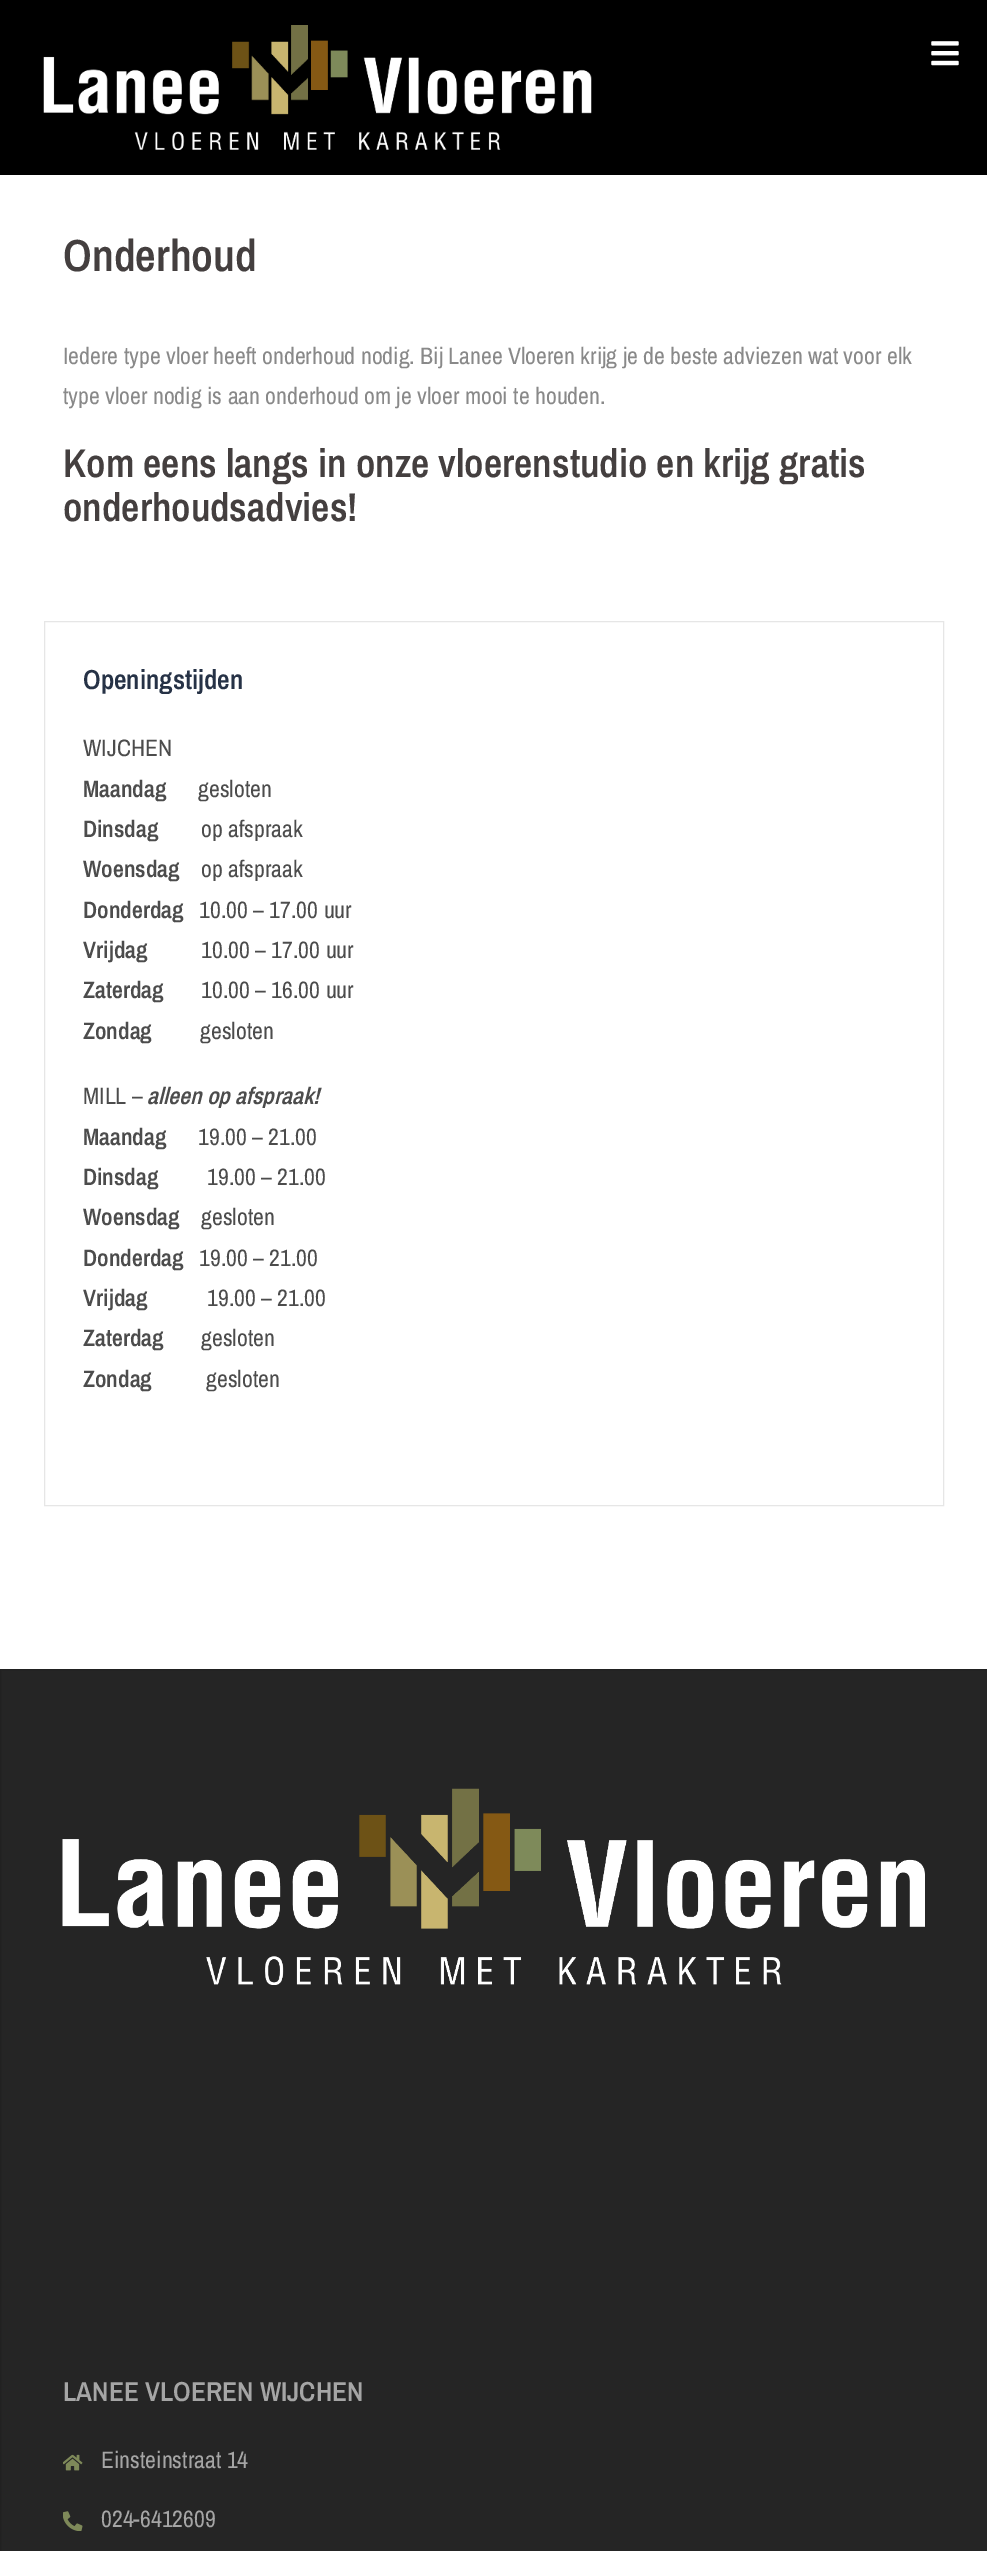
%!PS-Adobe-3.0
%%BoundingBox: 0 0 987 2551
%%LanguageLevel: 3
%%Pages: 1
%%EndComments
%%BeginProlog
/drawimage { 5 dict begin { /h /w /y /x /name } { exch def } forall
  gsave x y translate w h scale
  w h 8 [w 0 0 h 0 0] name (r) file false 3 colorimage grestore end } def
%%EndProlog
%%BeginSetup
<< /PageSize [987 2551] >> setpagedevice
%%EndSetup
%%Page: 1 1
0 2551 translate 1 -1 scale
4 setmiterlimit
1 setgray
0 0 987 2551 rectfill
0 setgray
0 0 987 175 rectfill
(images/1.raw) 43 25 549 125 drawimage
(images/2.raw) 931 41 28 25 drawimage
0.902 setgray
44.5 621.5 899 884 rectstroke
0.145 setgray
newpath 0.5 1669.5 moveto 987.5 1669.5 lineto 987.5 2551.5 lineto 0.5 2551.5 lineto closepath gsave fill grestore
0.129 setgray
stroke
(images/3.raw) 62 1788 863 197 drawimage
(images/4.raw) 63 2454 20 17 drawimage
(images/5.raw) 63 2511 20 20 drawimage
/ArchivoNarrow-SemiBold [45 0 0 -45 0 0] selectfont
0.267 0.247 0.247 setrgbcolor
63 271 moveto (Onderhoud) show
/ArchivoNarrow-Regular [23.75 0 0 -23.75 0 0] selectfont
0.537 setgray
63 364 moveto (Iedere type vloer heeft onderhoud nodig. Bij Lanee Vloeren krijg je de beste adviezen wat voor elk) show
63 404 moveto (type vloer nodig is aan onderhoud om je vloer mooi te houden.) show
/ArchivoNarrow-SemiBold [40 0 0 -40 0 0] selectfont
0.267 0.247 0.247 setrgbcolor
63 477 moveto (Kom eens langs in onze vloerenstudio en krijg gratis) show
63 521 moveto (onderhoudsadvies!) show
/ArchivoNarrow-SemiBold [27.5 0 0 -27.5 0 0] selectfont
0.149 0.196 0.275 setrgbcolor
83 689 moveto (Openingstijden) show
/ArchivoNarrow-Regular [23.75 0 0 -23.75 0 0] selectfont
0.298 setgray
83 756 moveto (WIJCHEN) show
/ArchivoNarrow-SemiBold [23.75 0 0 -23.75 0 0] selectfont
83 797 moveto (Maandag) show
/ArchivoNarrow-Regular [23.75 0 0 -23.75 0 0] selectfont
198 797 moveto (gesloten) show
/ArchivoNarrow-SemiBold [23.75 0 0 -23.75 0 0] selectfont
83 837 moveto (Dinsdag) show
/ArchivoNarrow-Regular [23.75 0 0 -23.75 0 0] selectfont
201 837 moveto (op afspraak) show
/ArchivoNarrow-SemiBold [23.75 0 0 -23.75 0 0] selectfont
83 877 moveto (Woensdag) show
/ArchivoNarrow-Regular [23.75 0 0 -23.75 0 0] selectfont
201 877 moveto (op afspraak) show
/ArchivoNarrow-SemiBold [23.75 0 0 -23.75 0 0] selectfont
83 918 moveto (Donderdag) show
/ArchivoNarrow-Regular [23.75 0 0 -23.75 0 0] selectfont
199 918 moveto (10.00 – 17.00 uur) show
/ArchivoNarrow-SemiBold [23.75 0 0 -23.75 0 0] selectfont
83 958 moveto (Vrijdag) show
/ArchivoNarrow-Regular [23.75 0 0 -23.75 0 0] selectfont
201 958 moveto (10.00 – 17.00 uur) show
/ArchivoNarrow-SemiBold [23.75 0 0 -23.75 0 0] selectfont
83 998 moveto (Zaterdag) show
/ArchivoNarrow-Regular [23.75 0 0 -23.75 0 0] selectfont
201 998 moveto (10.00 – 16.00 uur) show
/ArchivoNarrow-SemiBold [23.75 0 0 -23.75 0 0] selectfont
83 1039 moveto (Zondag) show
/ArchivoNarrow-Regular [23.75 0 0 -23.75 0 0] selectfont
200 1039 moveto (gesloten) show
83 1104 moveto (MILL –) show
/ArchivoNarrow-SemiBoldItalic [23.75 0 0 -23.75 0 0] selectfont
147 1104 moveto (alleen op afspraak!) show
/ArchivoNarrow-SemiBold [23.75 0 0 -23.75 0 0] selectfont
83 1145 moveto (Maandag) show
/ArchivoNarrow-Regular [23.75 0 0 -23.75 0 0] selectfont
198 1145 moveto (19.00 – 21.00) show
/ArchivoNarrow-SemiBold [23.75 0 0 -23.75 0 0] selectfont
83 1185 moveto (Dinsdag) show
/ArchivoNarrow-Regular [23.75 0 0 -23.75 0 0] selectfont
207 1185 moveto (19.00 – 21.00) show
/ArchivoNarrow-SemiBold [23.75 0 0 -23.75 0 0] selectfont
83 1225 moveto (Woensdag) show
/ArchivoNarrow-Regular [23.75 0 0 -23.75 0 0] selectfont
201 1225 moveto (gesloten) show
/ArchivoNarrow-SemiBold [23.75 0 0 -23.75 0 0] selectfont
83 1266 moveto (Donderdag) show
/ArchivoNarrow-Regular [23.75 0 0 -23.75 0 0] selectfont
199 1266 moveto (19.00 – 21.00) show
/ArchivoNarrow-SemiBold [23.75 0 0 -23.75 0 0] selectfont
83 1306 moveto (Vrijdag) show
/ArchivoNarrow-Regular [23.75 0 0 -23.75 0 0] selectfont
207 1306 moveto (19.00 – 21.00) show
/ArchivoNarrow-SemiBold [23.75 0 0 -23.75 0 0] selectfont
83 1346 moveto (Zaterdag) show
/ArchivoNarrow-Regular [23.75 0 0 -23.75 0 0] selectfont
201 1346 moveto (gesloten) show
/ArchivoNarrow-SemiBold [23.75 0 0 -23.75 0 0] selectfont
83 1387 moveto (Zondag) show
/ArchivoNarrow-Regular [23.75 0 0 -23.75 0 0] selectfont
206 1387 moveto (gesloten) show
/ArchivoNarrow-SemiBold [27.5 0 0 -27.5 0 0] selectfont
0.647 setgray
63 2401 moveto (LANEE VLOEREN WIJCHEN) show
/ArchivoNarrow-Regular [23.75 0 0 -23.75 0 0] selectfont
101 2468 moveto (Einsteinstraat 14) show
101 2527 moveto (024-6412609) show
showpage
%%EOF
